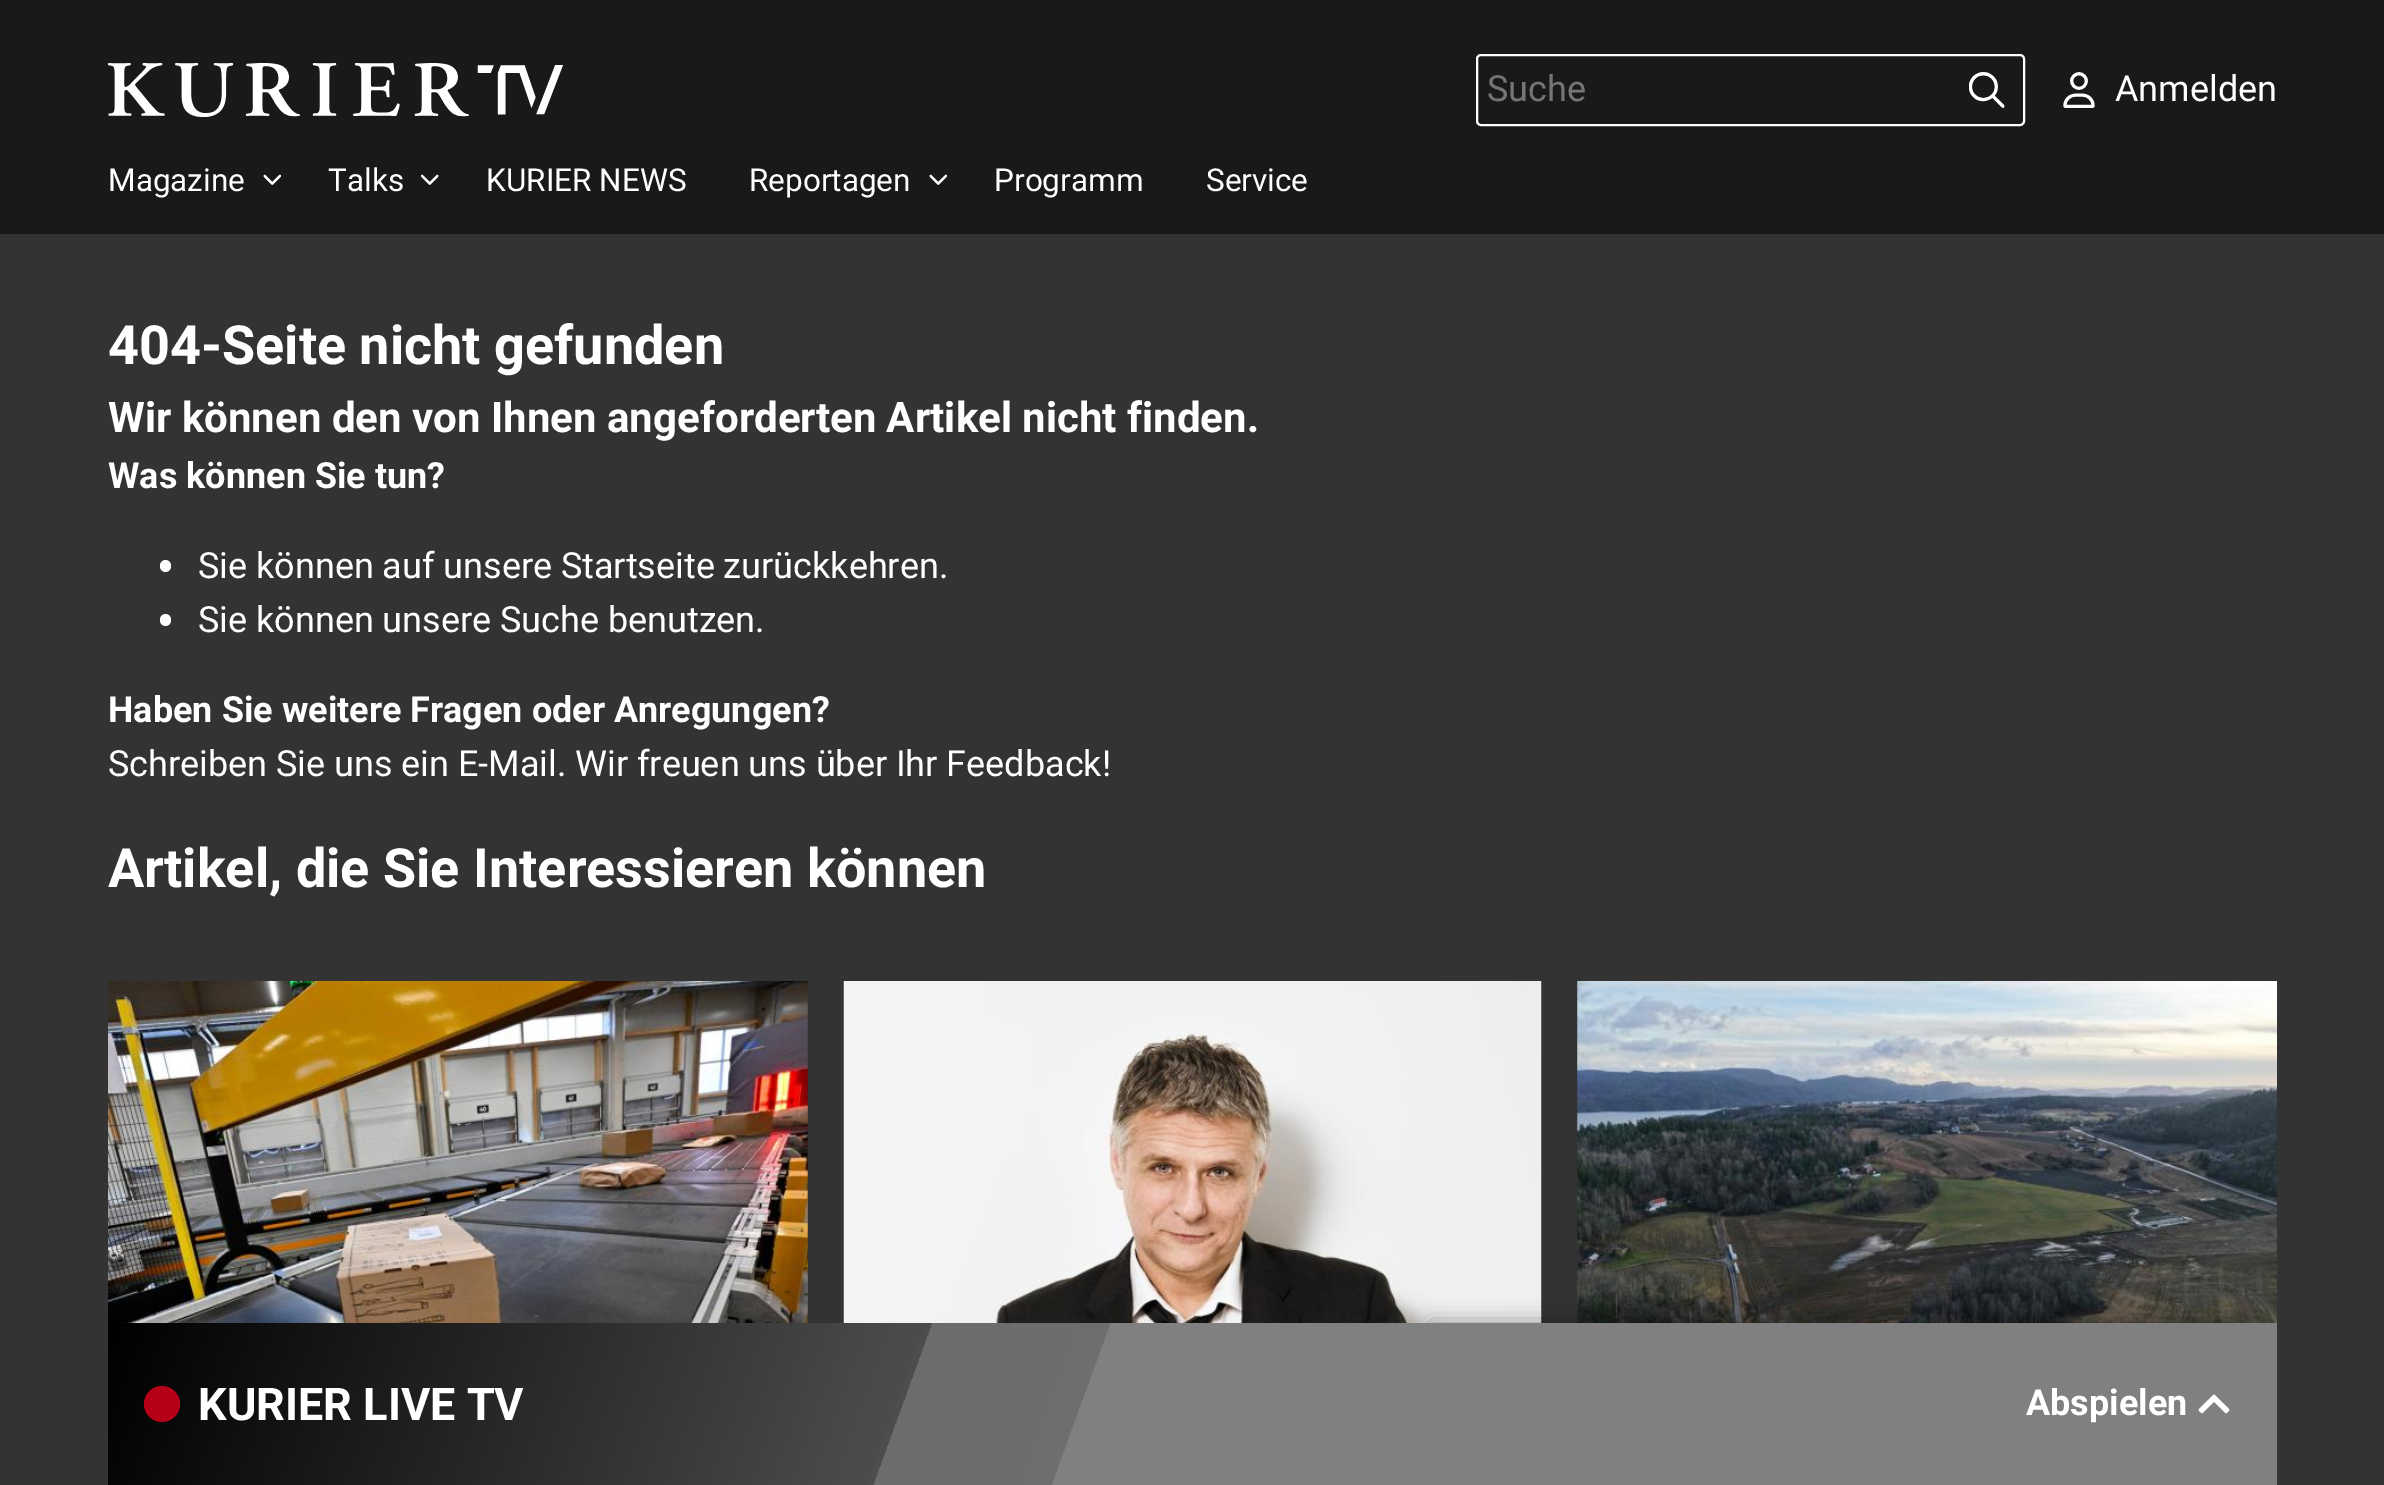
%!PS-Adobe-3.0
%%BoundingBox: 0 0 2384 1485
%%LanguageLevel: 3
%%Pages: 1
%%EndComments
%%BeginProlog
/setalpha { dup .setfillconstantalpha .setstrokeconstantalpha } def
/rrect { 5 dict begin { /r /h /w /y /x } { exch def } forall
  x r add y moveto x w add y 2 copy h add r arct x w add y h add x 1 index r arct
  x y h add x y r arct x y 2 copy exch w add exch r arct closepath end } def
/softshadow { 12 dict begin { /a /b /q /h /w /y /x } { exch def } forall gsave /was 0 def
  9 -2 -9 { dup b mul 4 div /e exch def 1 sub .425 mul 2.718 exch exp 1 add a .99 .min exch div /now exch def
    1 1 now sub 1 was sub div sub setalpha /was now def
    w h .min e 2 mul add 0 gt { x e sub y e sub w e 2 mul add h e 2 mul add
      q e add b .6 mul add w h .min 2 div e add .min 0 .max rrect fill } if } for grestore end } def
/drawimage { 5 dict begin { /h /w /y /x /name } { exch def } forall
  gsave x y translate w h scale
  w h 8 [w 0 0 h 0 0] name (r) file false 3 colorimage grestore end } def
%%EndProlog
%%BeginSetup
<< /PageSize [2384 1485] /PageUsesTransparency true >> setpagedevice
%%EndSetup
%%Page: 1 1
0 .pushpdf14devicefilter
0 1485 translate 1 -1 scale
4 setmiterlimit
0.2 setgray
0 0 2384 1485 rectfill
0.098 setgray
0 0 2384 234 rectfill
(images/1.raw) 108 63 455 54 drawimage
1 setgray
2 setlinewidth
1477 55 547 70 4 rrect stroke
(images/2.raw) 1969 72 36 36 drawimage
(images/3.raw) 2063 72 32 36 drawimage
(images/4.raw) 263 174 18 11 drawimage
(images/5.raw) 421 174 18 11 drawimage
(images/4.raw) 929 174 18 11 drawimage
160 560 11 12 5.5 rrect fill
160 614 11 12 5.5 rrect fill
(images/6.raw) 108 981 700 342 drawimage
(images/7.raw) 843 981 699 342 drawimage
(images/8.raw) 1577 981 700 342 drawimage
0 setgray
1431 1325 810 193 0 11 0.5 softshadow
gsave newpath 108 1323 moveto 2277 1323 lineto 2277 1485 lineto 108 1485 lineto closepath clip newpath
<< /ShadingType 2 /ColorSpace /DeviceRGB /Coords [209 1046 2176 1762] /Extend [true true] /Function << /FunctionType 3 /Domain [0 1] /Functions [<< /FunctionType 2 /Domain [0 1] /C0 [0 0 0] /C1 [0.302 0.302 0.302] /N 1 >> << /FunctionType 2 /Domain [0 1] /C0 [0.424 0.424 0.424] /C1 [0.431 0.431 0.431] /N 1 >> << /FunctionType 2 /Domain [0 1] /C0 [0.502 0.502 0.502] /C1 [0.502 0.502 0.502] /N 1 >>] /Bounds [0.37 0.45] /Encode [0 1 0 1 0 1] >> >> shfill grestore
0.714 0 0.09 setrgbcolor
newpath 162 1404 18 0 360 arc closepath fill
(images/9.raw) 2198 1394 32 20 drawimage
/Roboto-Regular [36 0 0 -36 0 0] selectfont
0.459 setgray
1487 101 moveto (Suche) show
1 setgray
2115 101 moveto (Anmelden) show
/Roboto-Regular [31.5 0 0 -31.5 0 0] selectfont
108 191 moveto (Magazine) show
328 191 moveto (Talks) show
486 191 moveto (KURIER NEWS) show
749 191 moveto (Reportagen) show
994 191 moveto (Programm) show
1206 191 moveto (Service) show
/Roboto-Bold [54 0 0 -54 0 0] selectfont
108 364 moveto (404-Seite nicht gefunden) show
/Roboto-Bold [42.1 0 0 -42.1 0 0] selectfont
108 432 moveto -0.25 0 32 (Wir können den von Ihnen angeforderten Artikel nicht finden.) widthshow
/Roboto-Bold [36 0 0 -36 0 0] selectfont
108 488 moveto (Was können Sie tun?) show
/Roboto-Regular [36 0 0 -36 0 0] selectfont
198 578 moveto (Sie können auf unsere Startseite zurückkehren.) show
198 632 moveto (Sie können unsere Suche benutzen.) show
/Roboto-Bold [36 0 0 -36 0 0] selectfont
108 722 moveto (Haben Sie weitere Fragen oder Anregungen?) show
/Roboto-Regular [36 0 0 -36 0 0] selectfont
108 776 moveto (Schreiben Sie uns ein E-Mail. Wir freuen uns über Ihr Feedback!) show
/Roboto-Bold [54 0 0 -54 0 0] selectfont
108 887 moveto (Artikel, die Sie Interessieren können) show
/Roboto-Bold [45 0 0 -45 0 0] selectfont
198 1420 moveto (KURIER LIVE TV) show
/Roboto-Bold [36 0 0 -36 0 0] selectfont
2026 1415 moveto (Abspielen) show
.poppdf14devicefilter showpage
%%EOF
